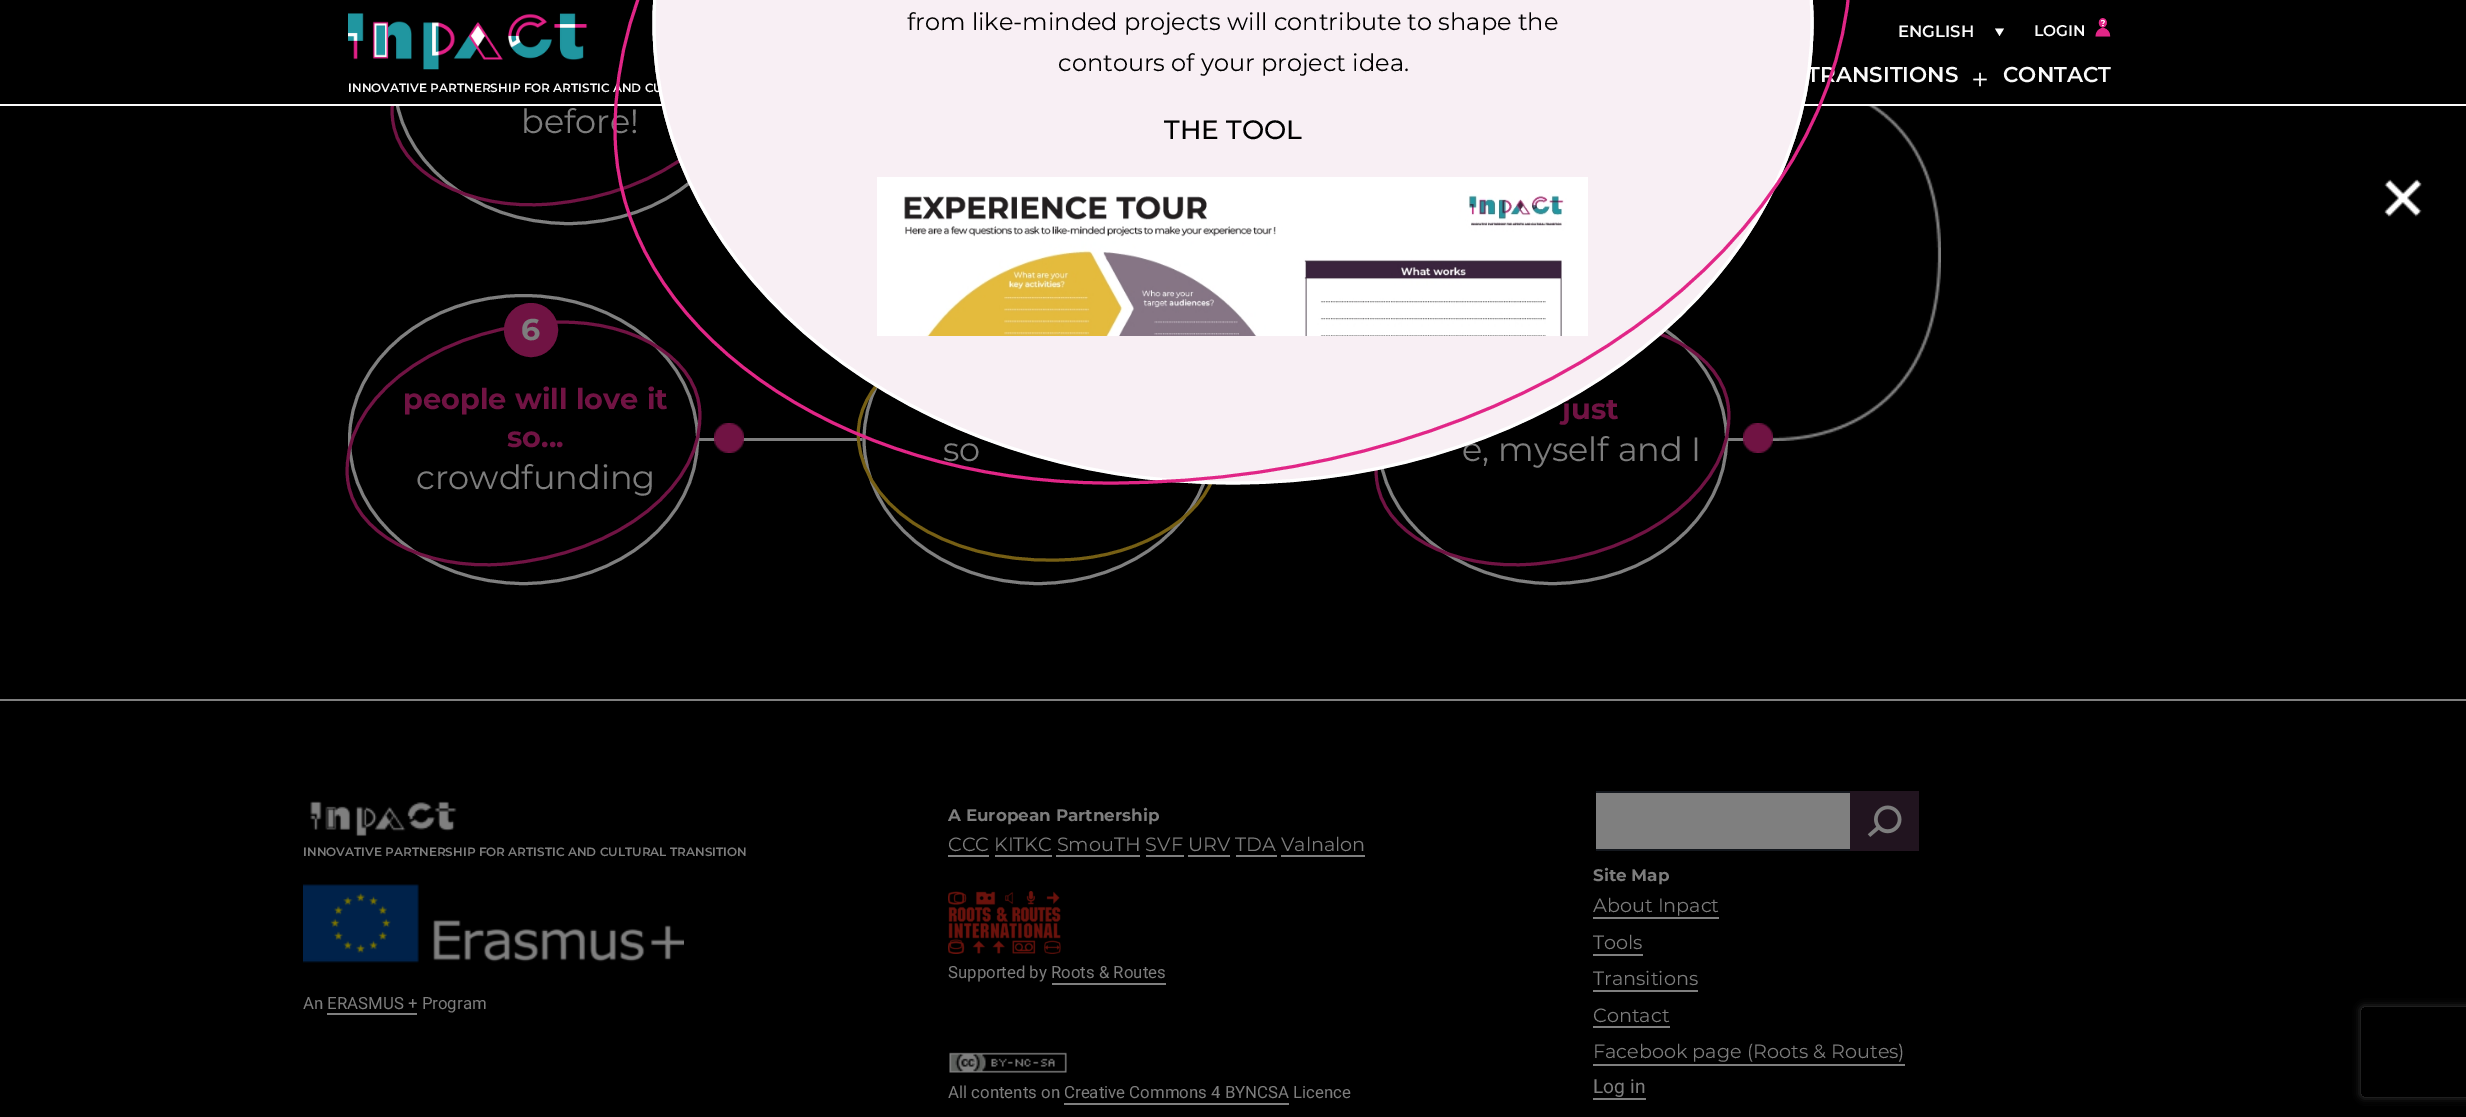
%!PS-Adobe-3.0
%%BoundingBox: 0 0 2466 1117
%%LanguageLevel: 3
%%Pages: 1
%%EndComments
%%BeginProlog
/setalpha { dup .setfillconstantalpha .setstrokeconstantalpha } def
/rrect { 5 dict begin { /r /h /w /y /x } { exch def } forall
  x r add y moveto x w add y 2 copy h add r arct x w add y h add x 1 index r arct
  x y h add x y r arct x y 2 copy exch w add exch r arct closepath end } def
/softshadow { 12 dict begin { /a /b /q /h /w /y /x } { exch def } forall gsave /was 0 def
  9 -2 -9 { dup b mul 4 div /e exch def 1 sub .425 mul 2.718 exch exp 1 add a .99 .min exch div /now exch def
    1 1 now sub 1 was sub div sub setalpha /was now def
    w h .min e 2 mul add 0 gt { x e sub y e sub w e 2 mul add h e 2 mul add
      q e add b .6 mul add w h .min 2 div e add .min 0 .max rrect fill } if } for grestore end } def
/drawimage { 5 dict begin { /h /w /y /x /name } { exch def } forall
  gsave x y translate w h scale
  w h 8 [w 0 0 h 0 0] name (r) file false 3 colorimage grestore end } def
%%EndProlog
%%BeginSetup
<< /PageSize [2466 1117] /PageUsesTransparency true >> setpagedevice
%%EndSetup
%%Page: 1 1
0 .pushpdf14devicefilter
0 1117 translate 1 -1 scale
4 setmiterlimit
0 setgray
0 0 2466 1117 rectfill
1 setgray
3 setlinewidth
newpath 568.5 -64.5 moveto 664.5 -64.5 742.5 0 742.5 79.5 curveto 742.5 159 664.5 223.5 568.5 223.5 curveto 472.5 223.5 394.5 159 394.5 79.5 curveto 394.5 0 472.5 -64.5 568.5 -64.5 curveto closepath stroke
0.882 0.149 0.529 setrgbcolor
newpath 587 -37 moveto 669 -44.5 740 -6 744.5 48.5 curveto 751.5 124.5 664 194 550 204 curveto 468 211 397 172.5 392.5 118 curveto 385.5 42.5 473 -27 587 -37 curveto closepath stroke
1 setgray
348 438 1425 3 rectfill
(images/2.raw) 714 423 30 30 drawimage
0 setgray
newpath 523.5 294 moveto 620.5 294 699 359 699 439.5 curveto 699 520 620.5 585 523.5 585 curveto 426.5 585 348 520 348 439.5 curveto 348 359 426.5 294 523.5 294 curveto closepath fill
1 setgray
newpath 523.5 295.5 moveto 619.5 295.5 697.5 360 697.5 439.5 curveto 697.5 519 619.5 583.5 523.5 583.5 curveto 427.5 583.5 349.5 519 349.5 439.5 curveto 349.5 360 427.5 295.5 523.5 295.5 curveto closepath stroke
0.882 0.149 0.529 setrgbcolor
newpath 542 323 moveto 624 315.5 695 354 699.5 408.5 curveto 706.5 484.5 619 554 505 564 curveto 423 571 352 532.5 347.5 478 curveto 340.5 402.5 428 333 542 323 curveto closepath stroke
newpath 531 330 26 0 360 arc closepath gsave fill grestore
2 setlinewidth
stroke
0 setgray
newpath 1038 294 moveto 1135 294 1213.5 359 1213.5 439.5 curveto 1213.5 520 1135 585 1038 585 curveto 941 585 862.5 520 862.5 439.5 curveto 862.5 359 941 294 1038 294 curveto closepath fill
1 setgray
3 setlinewidth
newpath 1038 295.5 moveto 1134 295.5 1212 360 1212 439.5 curveto 1212 519 1134 583.5 1038 583.5 curveto 942 583.5 864 519 864 439.5 curveto 864 360 942 295.5 1038 295.5 curveto closepath stroke
0.925 0.745 0.161 setrgbcolor
newpath 999 328 moveto 1113 318 1211 371 1217.5 447 curveto 1222.5 501.5 1159.5 551.5 1077 559 curveto 963 569 865 515.5 858.5 440 curveto 853.5 385 916.5 335 999 328 curveto closepath stroke
(images/3.raw) 1743 423 30 30 drawimage
0 setgray
newpath 1552.5 294 moveto 1649.5 294 1728 359 1728 439.5 curveto 1728 520 1649.5 585 1552.5 585 curveto 1455.5 585 1377 520 1377 439.5 curveto 1377 359 1455.5 294 1552.5 294 curveto closepath fill
1 setgray
newpath 1552.5 295.5 moveto 1648.5 295.5 1726.5 360 1726.5 439.5 curveto 1726.5 519 1648.5 583.5 1552.5 583.5 curveto 1456.5 583.5 1378.5 519 1378.5 439.5 curveto 1378.5 360 1456.5 295.5 1552.5 295.5 curveto closepath stroke
0.882 0.149 0.529 setrgbcolor
newpath 1571 323 moveto 1653 315.5 1724 354 1728.5 408.5 curveto 1735.5 484.5 1648 554 1534 564 curveto 1452 571 1381 532.5 1376.5 478 curveto 1369.5 402.5 1457 333 1571 323 curveto closepath stroke
(images/5.raw) 1773 106 168 335 drawimage
0 setgray
390 0 357 104 rectfill
0.98 setgray
0 104 2466 2 rectfill
1 setgray
newpath 1995 28.5 moveto 2004 28.5 lineto 1999.5 36 lineto closepath fill
(images/6.raw) 2095 18 16 19 drawimage
(images/7.raw) 1973 72 14 15 drawimage
(images/8.raw) 348 13 240 57 drawimage
0 699 2466 2 rectfill
(images/9.raw) 310 801 147 36 drawimage
(images/10.raw) 303 884 381 79 drawimage
327 1013 90 2 rectfill
948 855 41 2 rectfill
995 855 57 2 rectfill
1056 855 84 2 rectfill
1146 855 38 2 rectfill
1188 855 42 2 rectfill
1236 855 41 2 rectfill
1281 855 84 2 rectfill
(images/11.raw) 948 891 113 63 drawimage
1052 983 114 2 rectfill
(images/12.raw) 949 1052 118 21 drawimage
1064 1103 225 2 rectfill
1596 793 254 56 rectfill
0.157 0.188 0.239 setrgbcolor
1596 791 258 2 rectfill
1596 849 258 2 rectfill
0.263 0.161 0.247 setrgbcolor
1850 791 69 60 rectfill
(images/13.raw) 1867 805 35 32 drawimage
1 setgray
1593 917 126 2 rectfill
1593 954 50 2 rectfill
1593 990 105 2 rectfill
1593 1026 77 2 rectfill
1593 1064 312 2 rectfill
1593 1098 53 2 rectfill
gsave
newpath 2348 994 moveto 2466 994 lineto 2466 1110 lineto 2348 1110 lineto closepath 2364 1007 moveto 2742 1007 lineto 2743.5 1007 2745 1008.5 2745 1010 curveto 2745 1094 lineto 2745 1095.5 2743.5 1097 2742 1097 curveto 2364 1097 lineto 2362.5 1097 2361 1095.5 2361 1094 curveto 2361 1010 lineto 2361 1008.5 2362.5 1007 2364 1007 curveto closepath eoclip newpath
0.502 setgray
2361 1007 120 90 3 4 1 softshadow
grestore
/Montserrat-Regular [33.5 0 0 -33.5 0 0] selectfont
0.98 setgray
521 133 moveto (before!) show
/Montserrat-Bold [30 0 0 -30 0 0] selectfont
521 340 moveto (6) show
/Montserrat-Bold [28.75 0 0 -28.75 0 0] selectfont
0.882 0.149 0.529 setrgbcolor
403 409 moveto (people will love it) show
507 447 moveto (so...) show
/Montserrat-Regular [33.5 0 0 -33.5 0 0] selectfont
0.98 setgray
416 489 moveto (crowdfunding) show
943 461 moveto (so) show
/Montserrat-Bold [28.75 0 0 -28.75 0 0] selectfont
0.882 0.149 0.529 setrgbcolor
1562 419 moveto (just) show
/Montserrat-Regular [33.5 0 0 -33.5 0 0] selectfont
0.98 setgray
1462 461 moveto (e, myself and I) show
/Montserrat-SemiBold [16.5 0 0 -16.5 0 0] selectfont
1898 37 moveto (ENGLISH) show
/Montserrat-SemiBold [15.5 0 0 -15.5 0 0] selectfont
2034 36 moveto (LOGIN) show
/Montserrat-SemiBold [21.5 0 0 -21.5 0 0] selectfont
1807 82 moveto (TRANSITIONS) show
2003 82 moveto (CONTACT) show
/Montserrat-SemiBold [12 0 0 -12 0 0] selectfont
348 92 moveto (INNOVATIVE PARTNERSHIP FOR ARTISTIC AND CU) show
303 856 moveto (INNOVATIVE PARTNERSHIP FOR ARTISTIC AND CULTURAL TRANSITION) show
/Roboto-Regular [16.8 0 0 -16.8 0 0] selectfont
303 1009 moveto (An ERASMUS + Program) show
/Montserrat-Bold [16.8 0 0 -16.8 0 0] selectfont
948 821 moveto (A European Partnership) show
/Montserrat-Regular [19.2 0 0 -19.2 0 0] selectfont
948 851 moveto (CCC KITKC SmouTH SVF URV TDA Valnalon) show
/Roboto-Regular [16.8 0 0 -16.8 0 0] selectfont
948 978 moveto (Supported by Roots & Routes) show
948 1098 moveto (All contents on Creative Commons 4 BYNCSA Licence) show
/Montserrat-Bold [16.8 0 0 -16.8 0 0] selectfont
1593 881 moveto (Site Map) show
/Montserrat-Regular [19.2 0 0 -19.2 0 0] selectfont
1593 912 moveto (About Inpact) show
1593 949 moveto (Tools) show
1593 985 moveto (Transitions) show
1593 1022 moveto (Contact) show
1593 1058 moveto (Facebook page \(Roots & Routes\)) show
/Roboto-Regular [19.2 0 0 -19.2 0 0] selectfont
1593 1093 moveto (Log in) show
0.5 setalpha
0 setgray
0 106 2466 999 rectfill
1 setalpha
0.973 0.937 0.957 setrgbcolor
newpath 1233 -438 moveto 1553.5 -438 1813.5 -231.5 1813.5 23 curveto 1813.5 277.5 1553.5 484 1233 484 curveto 912.5 484 652.5 277.5 652.5 23 curveto 652.5 -231.5 912.5 -438 1233 -438 curveto closepath fill
1 setgray
newpath 1233 -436.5 moveto 1553 -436.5 1812 -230.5 1812 23 curveto 1812 277 1553 483 1233 483 curveto 913 483 654 277 654 23 curveto 654 -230.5 913 -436.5 1233 -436.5 curveto closepath stroke
0.882 0.149 0.529 setrgbcolor
newpath 1357 -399 moveto 1630 -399 1851 -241 1851 -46.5 curveto 1851 246 1519 483 1109 483 curveto 836 483 615 325 615 130.5 curveto 615 -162 947 -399 1357 -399 curveto closepath stroke
(images/1.raw) 877 177 711 159 drawimage
/Montserrat-Medium [26.5 0 0 -26.5 0 0] selectfont
0 setgray
1164 139 moveto (THE TOOL) show
/Montserrat-Regular [24 0 0 -24 0 0] selectfont
1058 71 moveto (contours of your project idea.) show
907 30 moveto (from like-minded projects will contribute to shape the) show
(images/4.raw) 2384 179 38 38 drawimage
.poppdf14devicefilter showpage
%%EOF
